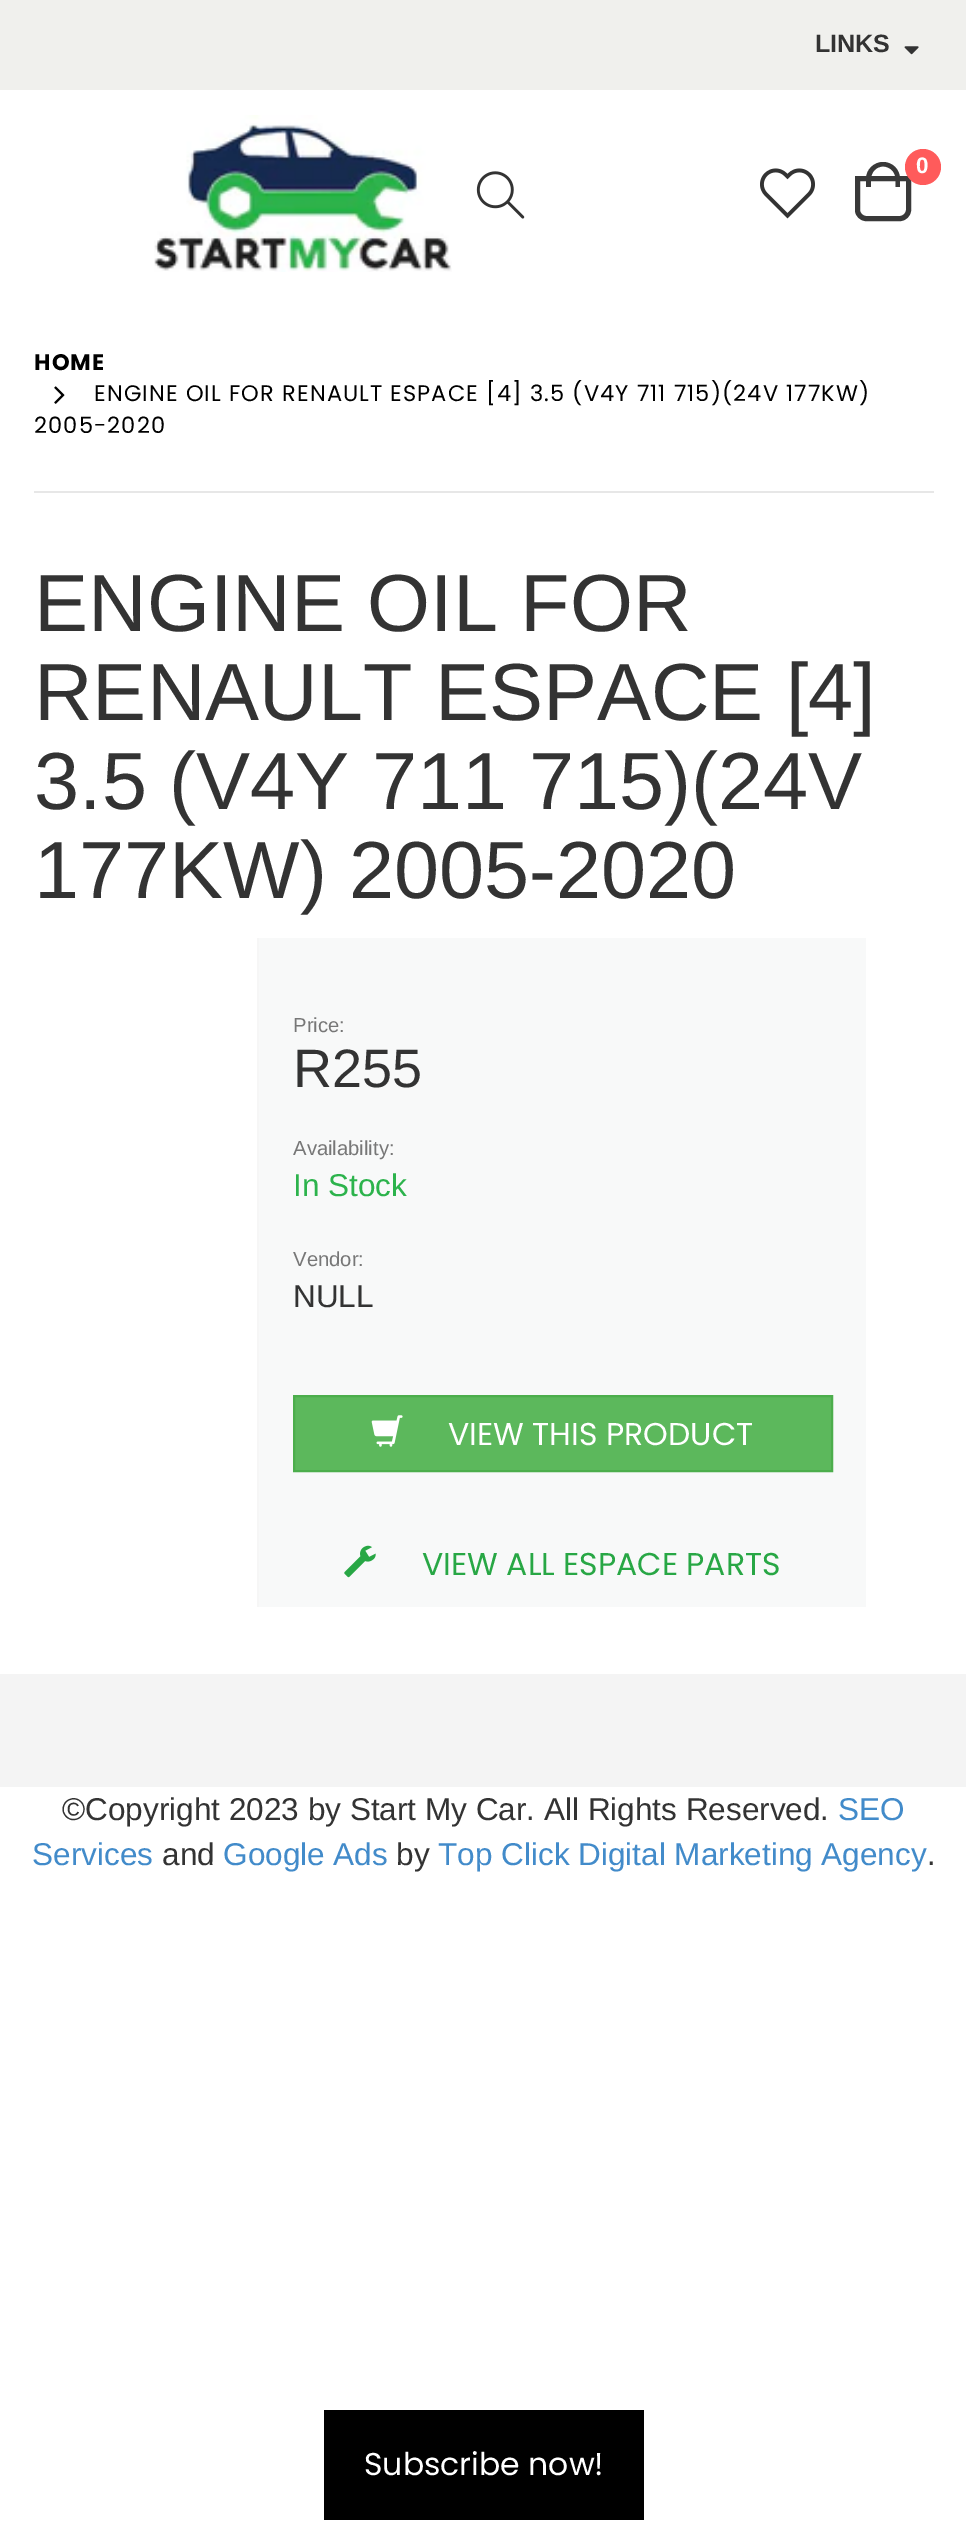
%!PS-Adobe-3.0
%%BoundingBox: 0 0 966 2537
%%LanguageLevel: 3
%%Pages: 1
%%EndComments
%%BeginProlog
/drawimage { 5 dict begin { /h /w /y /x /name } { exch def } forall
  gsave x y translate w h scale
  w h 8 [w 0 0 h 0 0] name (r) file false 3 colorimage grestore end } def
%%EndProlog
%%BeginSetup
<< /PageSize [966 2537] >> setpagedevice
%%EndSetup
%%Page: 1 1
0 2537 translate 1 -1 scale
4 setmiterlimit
1 setgray
0 0 966 2537 rectfill
0.941 0.941 0.929 setrgbcolor
0 0 966 90 rectfill
(images/1.raw) 904 46 15 9 drawimage
(images/2.raw) 154 115 298 157 drawimage
(images/3.raw) 476 171 49 48 drawimage
0.224 setgray
5 setlinewidth
newpath 857.5 178.5 moveto 908.5 178.5 lineto 908.5 210 lineto 908.5 214.5 904.5 218.5 900 218.5 curveto 866 218.5 lineto 861.5 218.5 857.5 214.5 857.5 210 curveto closepath stroke
newpath 883 162 moveto 892.5 162 900 169.5 900 179 curveto 900 187 lineto 866 187 lineto 866 179 lineto 866 169.5 874 162 883 162 curveto closepath 883 166.5 moveto 890 166.5 895.5 172 895.5 179 curveto 895.5 187 lineto 871 187 lineto 871 179 lineto 871 172 876.5 166.5 883 166.5 curveto closepath eofill
1 0.357 0.357 setrgbcolor
newpath 923 167 18 0 360 arc closepath fill
(images/4.raw) 760 168 55 51 drawimage
0.906 setgray
34 491 900 2 rectfill
(images/5.raw) 54 386 11 18 drawimage
0.965 setgray
257 938 2 669 rectfill
0.973 0.976 0.976 setrgbcolor
259 938 607 669 rectfill
0.361 0.722 0.361 setrgbcolor
newpath 294 1396 moveto 832 1396 lineto 832 1471 lineto 294 1471 lineto closepath gsave fill grestore
0.298 0.682 0.298 setrgbcolor
2 setlinewidth
stroke
(images/6.raw) 371 1415 32 32 drawimage
(images/7.raw) 344 1545 32 33 drawimage
0.957 setgray
0 1674 966 113 rectfill
0 setgray
324 2410 320 110 rectfill
/LiberationSans-Bold [25 0 0 -25 0 0] selectfont
0.2 setgray
815 52 moveto (LINKS) show
/LiberationSans-Bold [22.5 0 0 -22.5 0 0] selectfont
1 setgray
916 173 moveto (0) show
/Poppins-Bold [22.5 0 0 -22.5 0 0] selectfont
0 setgray
34 370 moveto 1.12 0 (HOME) ashow
/Poppins-Regular [22.5 0 0 -22.5 0 0] selectfont
94 401 moveto 1.12 0 (ENGINE OIL FOR RENAULT ESPACE [4] 3.5 \(V4Y 711 715\)\(24V 177KW\)) ashow
34 433 moveto 1.12 0 (2005-2020) ashow
/LiberationSans-Regular [81 0 0 -81 0 0] selectfont
0.2 setgray
34 631 moveto (ENGINE OIL FOR) show
34 720 moveto (RENAULT ESPACE [4]) show
34 809 moveto (3.5 \(V4Y 711 715\)\(24V) show
34 898 moveto (177KW\) 2005-2020) show
/LiberationSans-Regular [20.25 0 0 -20.25 0 0] selectfont
0.467 setgray
293 1032 moveto (Price:) show
/LiberationSans-Regular [54 0 0 -54 0 0] selectfont
0.2 setgray
293 1087 moveto (R255) show
/LiberationSans-Regular [20.25 0 0 -20.25 0 0] selectfont
0.467 setgray
293 1155 moveto (Availability:) show
/LiberationSans-Regular [31.5 0 0 -31.5 0 0] selectfont
0.173 0.702 0.298 setrgbcolor
293 1196 moveto (In Stock) show
/LiberationSans-Regular [20.25 0 0 -20.25 0 0] selectfont
0.467 setgray
293 1266 moveto (Vendor:) show
/LiberationSans-Regular [31.5 0 0 -31.5 0 0] selectfont
0.2 setgray
293 1307 moveto (NULL) show
/Poppins-Regular [31.5 0 0 -31.5 0 0] selectfont
1 setgray
448 1445 moveto (VIEW THIS PRODUCT) show
0.157 0.655 0.271 setrgbcolor
422 1575 moveto (VIEW ALL ESPACE PARTS) show
/LiberationSans-Regular [31.5 0 0 -31.5 0 0] selectfont
0.2 setgray
62 1820 moveto (©Copyright 2023 by Start My Car. All Rights Reserved.) show
0.259 0.545 0.792 setrgbcolor
838 1820 moveto (SEO) show
32 1865 moveto (Services) show
0.2 setgray
162 1865 moveto (and) show
0.259 0.545 0.792 setrgbcolor
223 1865 moveto (Google Ads) show
0.2 setgray
396 1865 moveto (by) show
0.259 0.545 0.792 setrgbcolor
438 1865 moveto (Top Click Digital Marketing Agency) show
0.2 setgray
927 1865 moveto (.) show
/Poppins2-Regular [31.5 0 0 -31.5 0 0] selectfont
1 setgray
364 2475 moveto (Subscribe now!) show
showpage
%%EOF
